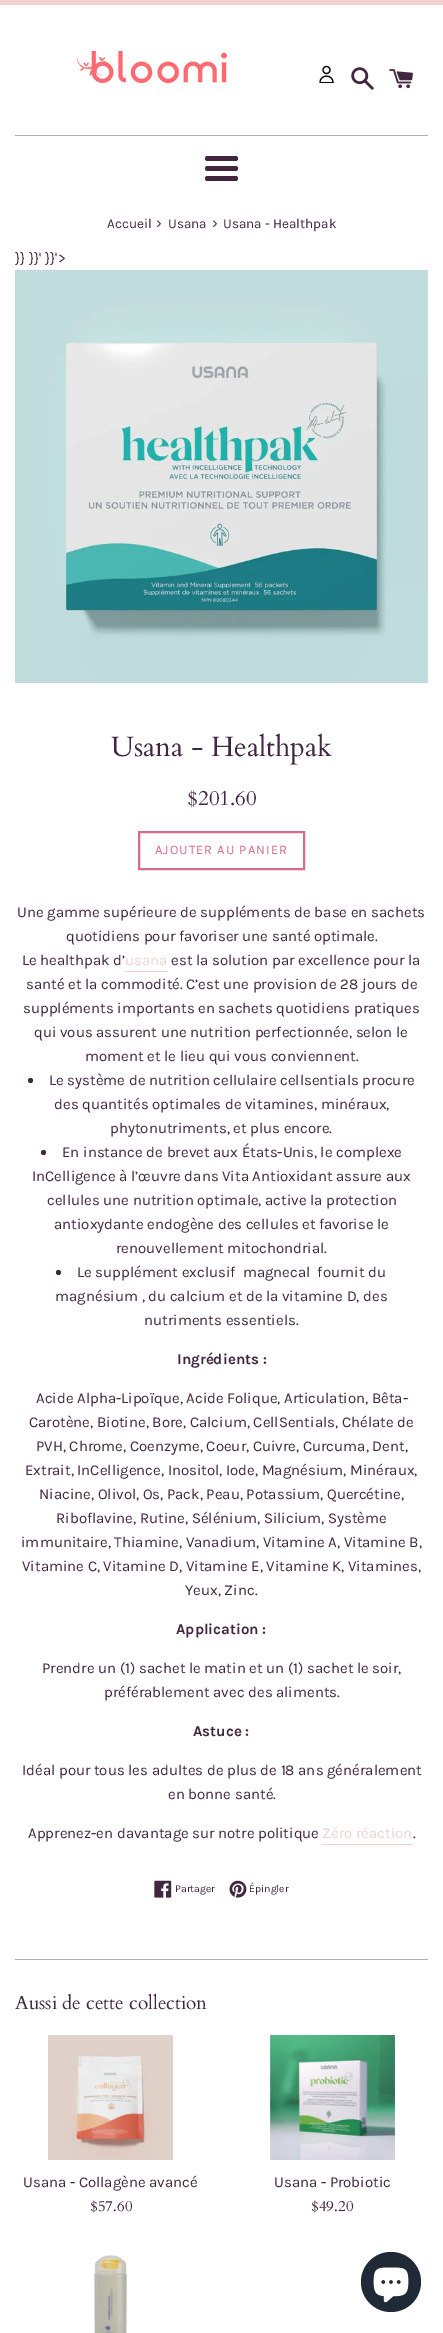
%!PS-Adobe-3.0
%%BoundingBox: 0 0 443 2333
%%LanguageLevel: 3
%%Pages: 1
%%EndComments
%%BeginProlog
/rrect { 5 dict begin { /r /h /w /y /x } { exch def } forall
  x r add y moveto x w add y 2 copy h add r arct x w add y h add x 1 index r arct
  x y h add x y r arct x y 2 copy exch w add exch r arct closepath end } def
/drawimage { 5 dict begin { /h /w /y /x /name } { exch def } forall
  gsave x y translate w h scale
  w h 8 [w 0 0 h 0 0] name (r) file false 3 colorimage grestore end } def
%%EndProlog
%%BeginSetup
<< /PageSize [443 2333] >> setpagedevice
%%EndSetup
%%Page: 1 1
0 2333 translate 1 -1 scale
4 setmiterlimit
1 setgray
0 0 443 2333 rectfill
0.941 0.824 0.816 setrgbcolor
0 0 443 5 rectfill
(images/1.raw) 77 51 150 32 drawimage
0 setgray
1.1 setlinewidth
newpath 326.5 70 3.5 0 360 arc closepath stroke
gsave
318 66 17 17 rectclip
1 setlinecap
1 setlinejoin
newpath 333 82.5 moveto 333 74 320 74 320 82.5 curveto closepath stroke
grestore
(images/2.raw) 351 67 23 23 drawimage
(images/3.raw) 389 69 24 20 drawimage
0.702 0.667 0.678 setrgbcolor
15 135 413 1 rectfill
0.251 0.149 0.243 setrgbcolor
205 156 33 5 2.5 rrect fill
205 166 33 5 2.5 rrect fill
205 176 33 5 2.5 rrect fill
(images/4.raw) 15 270 413 413 drawimage
0.835 0.424 0.545 setrgbcolor
2 setlinewidth
139 832 165 37 rectstroke
0.941 0.824 0.816 setrgbcolor
125 971 43 1 rectfill
0.251 0.149 0.243 setrgbcolor
newpath 30.5 1080.5 2.5 0 360 arc closepath fill
newpath 43.5 1152.5 2.5 0 360 arc closepath fill
newpath 58.5 1272.5 2.5 0 360 arc closepath fill
0.941 0.824 0.816 setrgbcolor
322 1844 91 1 rectfill
(images/5.raw) 154 1880 18 18 drawimage
(images/6.raw) 229 1880 18 18 drawimage
0.702 0.667 0.678 setrgbcolor
15 1959 413 1 rectfill
(images/7.raw) 48 2035 125 125 drawimage
(images/8.raw) 269 2035 126 125 drawimage
(images/9.raw) 94 2255 34 78 drawimage
0.125 0.165 0.212 setrgbcolor
newpath 391 2282 30 0 360 arc closepath fill
(images/10.raw) 373 2267 36 36 drawimage
/Karla-Regular [13.5 0 0 -13.5 0 0] selectfont
0.251 0.149 0.243 setrgbcolor
107 228 moveto (Accueil) show
/Karla-Regular [16 0 0 -16 0 0] selectfont
156 228 moveto (›) show
/Karla-Regular [13.5 0 0 -13.5 0 0] selectfont
168 228 moveto (Usana) show
/Karla-Regular [16 0 0 -16 0 0] selectfont
212 228 moveto (›) show
/Karla-Regular [13.5 0 0 -13.5 0 0] selectfont
223 228 moveto (Usana - Healthpak) show
/Karla-Regular [15 0 0 -15 0 0] selectfont
15 263 moveto (}} }}' }}'>) show
/Cardo-Regular [28 0 0 -28 0 0] selectfont
111 756 moveto (Usana - Healthpak) show
/Cardo-Regular [21 0 0 -21 0 0] selectfont
187 805 moveto ($201.60) show
/Karla-Regular [13 0 0 -13 0 0] selectfont
0.835 0.424 0.545 setrgbcolor
155 854 moveto 1 0 (AJOUTER AU PANIER) ashow
/Karla-Regular [15 0 0 -15 0 0] selectfont
0.251 0.149 0.243 setrgbcolor
17 917 moveto (Une gamme supérieure de suppléments de base en sachets) show
66 941 moveto (quotidiens pour favoriser une santé optimale.) show
22 965 moveto (Le healthpak d’) show
0.941 0.824 0.816 setrgbcolor
125 965 moveto (usana) show
0.251 0.149 0.243 setrgbcolor
171 965 moveto (est la solution par excellence pour la) show
26 989 moveto (santé et la commodité. C’est une provision de 28 jours de) show
23 1013 moveto (suppléments importants en sachets quotidiens pratiques) show
34 1037 moveto (qui vous assurent une nutrition perfectionnée, selon le) show
85 1061 moveto (moment et le lieu qui vous conviennent.) show
49 1085 moveto (Le système de nutrition cellulaire cellsentials procure) show
54 1109 moveto (des quantités optimales de vitamines, minéraux,) show
110 1133 moveto (phytonutriments, et plus encore.) show
62 1157 moveto (En instance de brevet aux États-Unis, le complexe) show
32 1181 moveto (InCelligence à l’œuvre dans Vita Antioxidant assure aux) show
47 1205 moveto (cellules une nutrition optimale, active la protection) show
54 1229 moveto (antioxydante endogène des cellules et favorise le) show
116 1253 moveto (renouvellement mitochondrial.) show
77 1277 moveto (Le supplément exclusif  magnecal  fournit du) show
55 1301 moveto (magnésium , du calcium et de la vitamine D, des) show
144 1325 moveto (nutriments essentiels.) show
/Karla-Bold [15 0 0 -15 0 0] selectfont
177 1364 moveto (Ingrédients :) show
/Karla-Regular [15 0 0 -15 0 0] selectfont
36 1403 moveto (Acide Alpha-Lipoïque, Acide Folique, Articulation, Bêta-) show
29 1427 moveto (Carotène, Biotine, Bore, Calcium, CellSentials, Chélate de) show
36 1451 moveto (PVH, Chrome, Coenzyme, Coeur, Cuivre, Curcuma, Dent,) show
25 1475 moveto (Extrait, InCelligence, Inositol, Iode, Magnésium, Minéraux,) show
39 1499 moveto (Niacine, Olivol, Os, Pack, Peau, Potassium, Quercétine,) show
56 1523 moveto (Riboflavine, Rutine, Sélénium, Silicium, Système) show
21 1547 moveto (immunitaire, Thiamine, Vanadium, Vitamine A, Vitamine B,) show
22 1571 moveto (Vitamine C, Vitamine D, Vitamine E, Vitamine K, Vitamines,) show
185 1595 moveto (Yeux, Zinc.) show
/Karla-Bold [15 0 0 -15 0 0] selectfont
176 1634 moveto (Application :) show
/Karla-Regular [15 0 0 -15 0 0] selectfont
42 1673 moveto (Prendre un \(1\) sachet le matin et un \(1\) sachet le soir,) show
104 1697 moveto (préférablement avec des aliments.) show
/Karla-Bold [15 0 0 -15 0 0] selectfont
193 1736 moveto (Astuce :) show
/Karla-Regular [15 0 0 -15 0 0] selectfont
22 1775 moveto (Idéal pour tous les adultes de plus de 18 ans généralement) show
168 1799 moveto (en bonne santé.) show
28 1838 moveto (Apprenez-en davantage sur notre politique) show
0.941 0.824 0.816 setrgbcolor
322 1838 moveto (Zéro réaction) show
0.251 0.149 0.243 setrgbcolor
413 1838 moveto (.) show
/Karla-Regular [10.5 0 0 -10.5 0 0] selectfont
175 1892 moveto (Partager) show
249 1892 moveto (Épingler) show
/Cardo-Regular [19 0 0 -19 0 0] selectfont
15 2009 moveto (Aussi de cette collection) show
/Karla-Regular [15 0 0 -15 0 0] selectfont
23 2187 moveto (Usana - Collagène avancé) show
/Cardo-Regular [15 0 0 -15 0 0] selectfont
90 2211 moveto ($57.60) show
/Karla-Regular [15 0 0 -15 0 0] selectfont
274 2187 moveto (Usana - Probiotic) show
/Cardo-Regular [15 0 0 -15 0 0] selectfont
311 2211 moveto ($49.20) show
showpage
%%EOF
